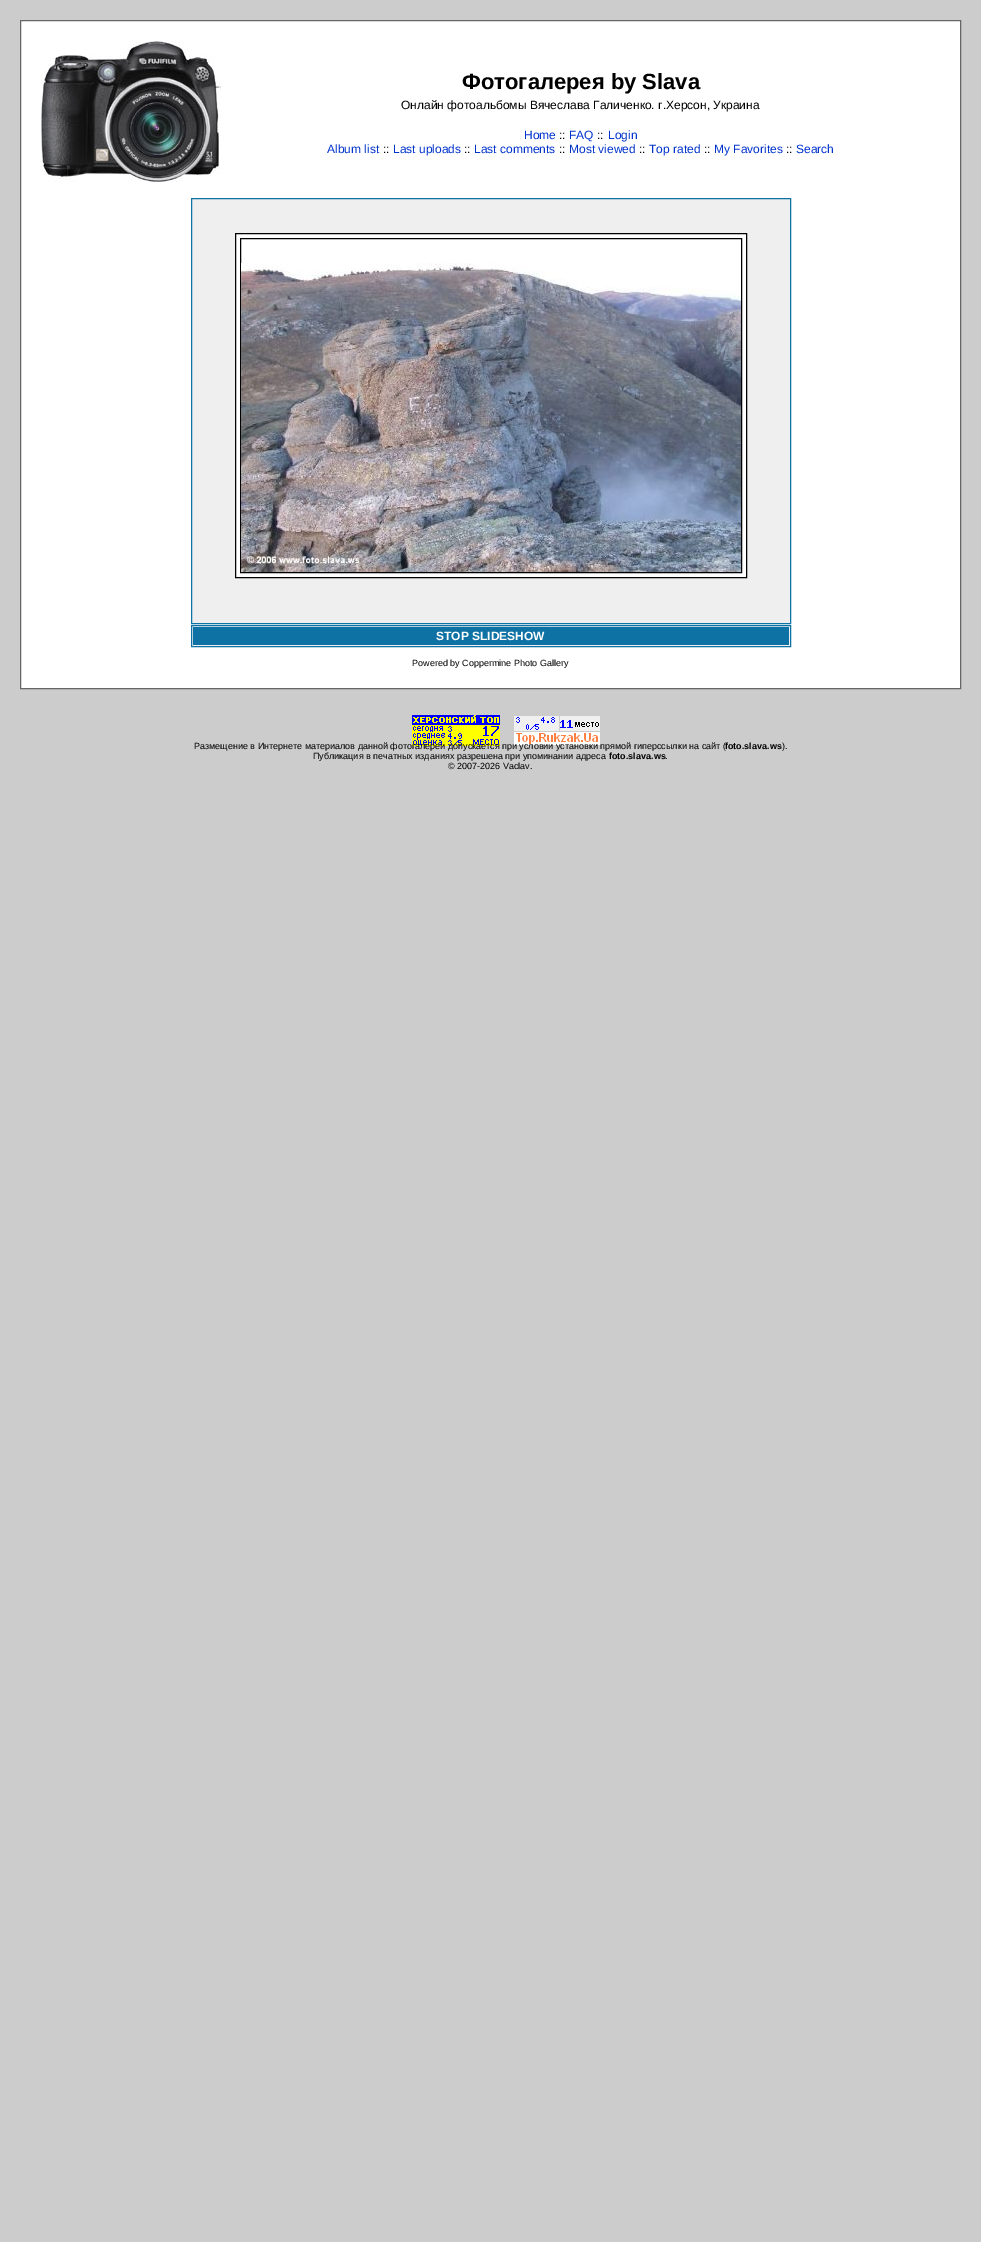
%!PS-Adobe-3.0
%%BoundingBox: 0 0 981 2242
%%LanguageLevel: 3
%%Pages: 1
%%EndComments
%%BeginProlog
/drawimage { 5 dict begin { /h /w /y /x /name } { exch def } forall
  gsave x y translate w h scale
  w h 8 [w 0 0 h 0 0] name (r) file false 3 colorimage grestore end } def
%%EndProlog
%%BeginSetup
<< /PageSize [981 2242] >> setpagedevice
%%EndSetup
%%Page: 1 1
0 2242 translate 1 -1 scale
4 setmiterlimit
0.8 setgray
0 0 981 2242 rectfill
1 setgray
newpath 20.5 20.5 moveto 960.5 20.5 lineto 960.5 688.5 lineto 20.5 688.5 lineto closepath gsave fill grestore
0.4 setgray
stroke
(images/1.raw) 41 41 180 141 drawimage
0.937 setgray
newpath 191.5 198.5 moveto 790.5 198.5 lineto 790.5 623.5 lineto 191.5 623.5 lineto closepath gsave fill grestore
0.055 0.447 0.643 setrgbcolor
stroke
1 setgray
newpath 235.5 233.5 moveto 746.5 233.5 lineto 746.5 577.5 lineto 235.5 577.5 lineto closepath gsave fill grestore
0 setgray
stroke
240.5 238.5 501 334 rectstroke
(images/2.raw) 241 263 500 309 drawimage
0.937 setgray
newpath 191.5 625.5 moveto 790.5 625.5 lineto 790.5 646.5 lineto 191.5 646.5 lineto closepath gsave fill grestore
0.055 0.447 0.643 setrgbcolor
stroke
193 627 596 18 rectfill
(images/3.raw) 412 715 88 31 drawimage
(images/4.raw) 514 716 86 29 drawimage
/LiberationSans-Bold [22 0 0 -22 0 0] selectfont
0 setgray
462 89 moveto (Фотогалерея by Slava) show
/LiberationSans-Regular [12 0 0 -12 0 0] selectfont
401 109 moveto (Онлайн фотоальбомы Вячеслава Галиченко. г.Херсон, Украина) show
0 0.2 0.8 setrgbcolor
524 139 moveto (Home) show
0 setgray
559 139 moveto (::) show
0 0.2 0.8 setrgbcolor
569 139 moveto (FAQ) show
0 setgray
597 139 moveto (::) show
0 0.2 0.8 setrgbcolor
608 139 moveto (Login) show
327 153 moveto (Album list) show
0 setgray
383 153 moveto (::) show
0 0.2 0.8 setrgbcolor
393 153 moveto (Last uploads) show
0 setgray
464 153 moveto (::) show
0 0.2 0.8 setrgbcolor
474 153 moveto (Last comments) show
0 setgray
559 153 moveto (::) show
0 0.2 0.8 setrgbcolor
569 153 moveto (Most viewed) show
0 setgray
639 153 moveto (::) show
0 0.2 0.8 setrgbcolor
649 153 moveto (Top rated) show
0 setgray
704 153 moveto (::) show
0 0.2 0.8 setrgbcolor
714 153 moveto (My Favorites) show
0 setgray
786 153 moveto (::) show
0 0.2 0.8 setrgbcolor
796 153 moveto (Search) show
/LiberationSans-Bold [12 0 0 -12 0 0] selectfont
1 setgray
436 640 moveto (STOP SLIDESHOW) show
/LiberationSans-Regular [9 0 0 -9 0 0] selectfont
0 setgray
412 666 moveto (Powered by Coppermine Photo Gallery) show
194 749 moveto (Размещение в Интернете материалов данной фотогалереи допускается при условии установки прямой гиперссылки на сайт \() show
/LiberationSans-Bold [9 0 0 -9 0 0] selectfont
725 749 moveto (foto.slava.ws) show
/LiberationSans-Regular [9 0 0 -9 0 0] selectfont
782 749 moveto (\).) show
313 759 moveto (Публикация в печатных изданиях разрешена при упоминании адреса) show
/LiberationSans-Bold [9 0 0 -9 0 0] selectfont
609 759 moveto (foto.slava.ws) show
/LiberationSans-Regular [9 0 0 -9 0 0] selectfont
665 759 moveto (.) show
448 769 moveto (© 2007-2026 Vaclav.) show
showpage
%%EOF
